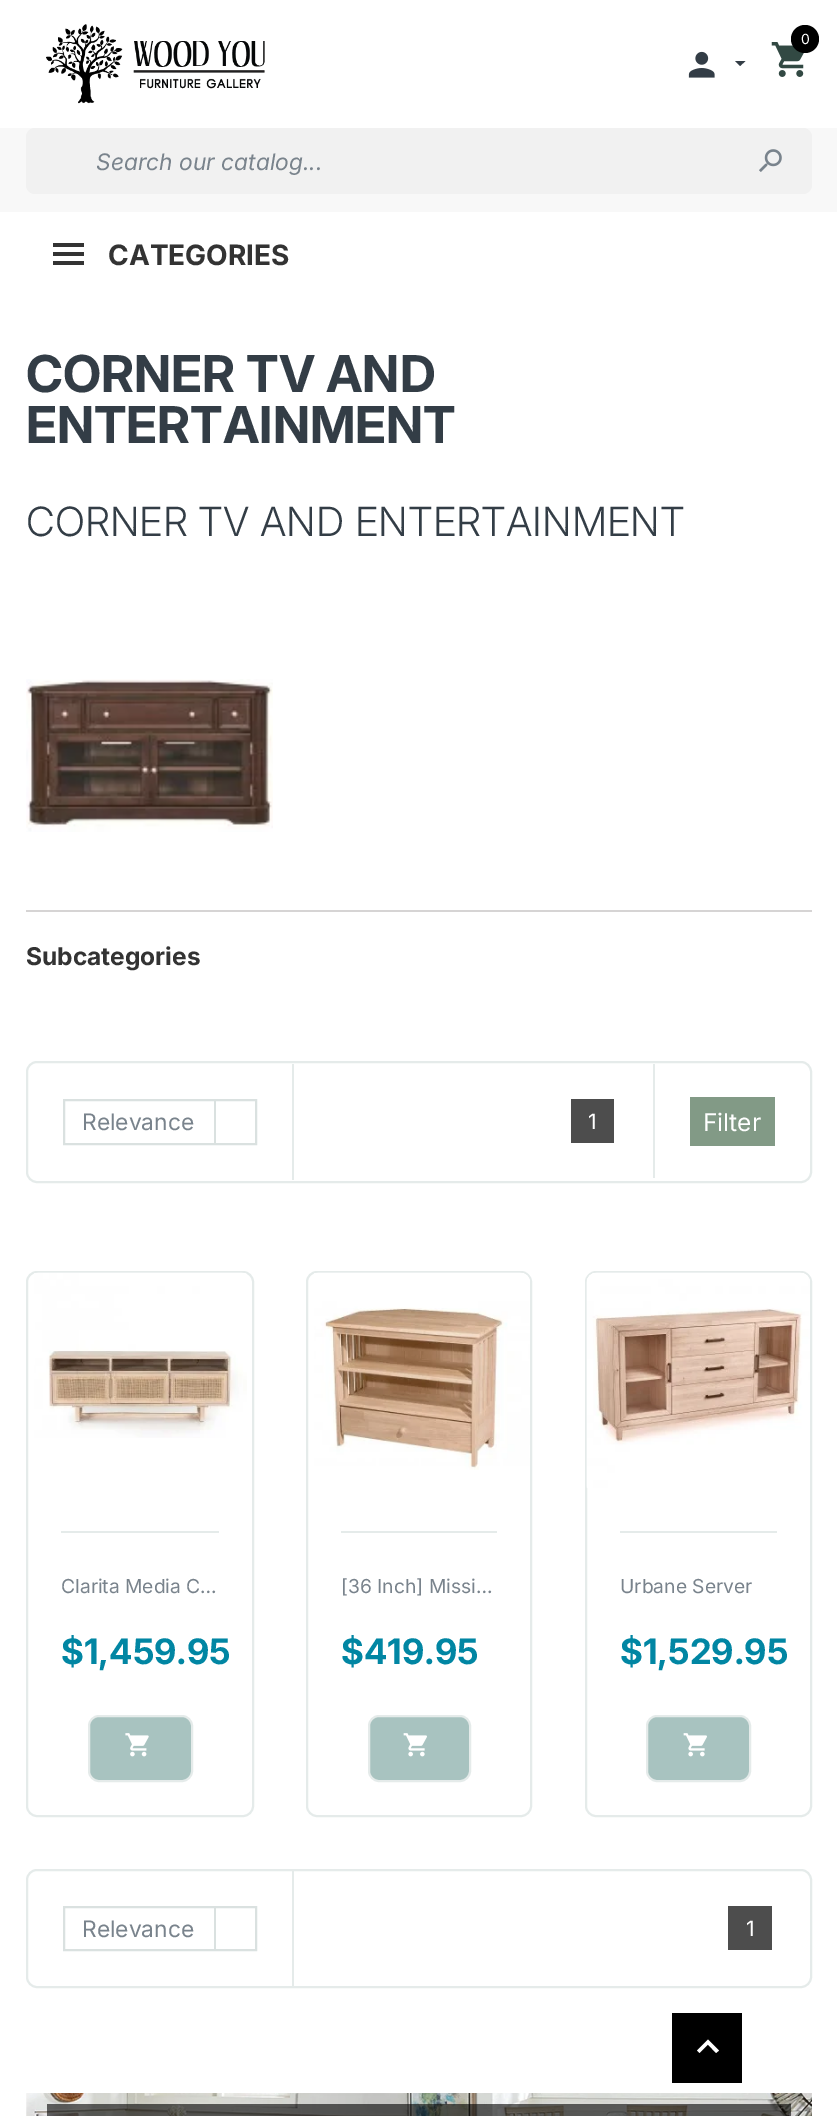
%!PS-Adobe-3.0
%%BoundingBox: 0 0 837 2116
%%LanguageLevel: 3
%%Pages: 1
%%EndComments
%%BeginProlog
/setalpha { dup .setfillconstantalpha .setstrokeconstantalpha } def
/rrect { 5 dict begin { /r /h /w /y /x } { exch def } forall
  x r add y moveto x w add y 2 copy h add r arct x w add y h add x 1 index r arct
  x y h add x y r arct x y 2 copy exch w add exch r arct closepath end } def
/drawimage { 5 dict begin { /h /w /y /x /name } { exch def } forall
  gsave x y translate w h scale
  w h 8 [w 0 0 h 0 0] name (r) file false 3 colorimage grestore end } def
%%EndProlog
%%BeginSetup
<< /PageSize [837 2116] /PageUsesTransparency true >> setpagedevice
%%EndSetup
%%Page: 1 1
0 .pushpdf14devicefilter
0 2116 translate 1 -1 scale
4 setmiterlimit
0.973 setgray
0 0 837 2116 rectfill
1 setgray
0 0 837 128 rectfill
(images/1.raw) 46 24 219 80 drawimage
(images/2.raw) 771 42 34 35 drawimage
0 setgray
newpath 805 39 14 0 360 arc closepath fill
(images/3.raw) 688 51 27 27 drawimage
0.2 0.239 0.275 setrgbcolor
newpath 735 61 moveto 745.5 61 lineto 740 66 lineto closepath fill
0.945 setgray
26 128 786 66 9 rrect fill
(images/4.raw) 759 149 23 23 drawimage
1 setgray
0 212 837 1904 rectfill
0.2 setgray
53 243 31 4 rectfill
53 252 31 4 rectfill
53 261 31 4 rectfill
(images/5.raw) 26 679 247 153 drawimage
0.839 0.831 0.831 setrgbcolor
26 910 786 2 rectfill
0.898 0.922 0.918 setrgbcolor
2 setlinewidth
27 1062 784 120 10 rrect stroke
292 1064 2 116 rectfill
0.855 0.882 0.878 setrgbcolor
64 1100 192 44 rectstroke
214 1101 2 42 rectfill
0.898 0.922 0.918 setrgbcolor
653 1064 2 114 rectfill
0.302 setgray
571 1099 43 44 rectfill
0.51 0.604 0.525 setrgbcolor
690 1097 85 49 rectfill
0.898 0.922 0.918 setrgbcolor
27 1272 226 544 10 rrect stroke
(images/6.raw) 34 1272 213 166 drawimage
61 1531 158 2 rectfill
0.659 0.765 0.753 setrgbcolor
89 1716 103 65 10 rrect gsave fill grestore
0.898 0.922 0.918 setrgbcolor
stroke
(images/7.raw) 125 1733 24 24 drawimage
307 1272 224 544 10 rrect stroke
(images/8.raw) 314 1272 216 198 drawimage
341 1531 156 2 rectfill
0.659 0.765 0.753 setrgbcolor
369 1716 101 65 10 rrect gsave fill grestore
0.898 0.922 0.918 setrgbcolor
stroke
(images/9.raw) 403 1733 24 24 drawimage
586 1272 225 544 10 rrect stroke
(images/10.raw) 586 1272 224 216 drawimage
620 1531 157 2 rectfill
0.659 0.765 0.753 setrgbcolor
647 1716 103 65 10 rrect gsave fill grestore
0.898 0.922 0.918 setrgbcolor
stroke
(images/9.raw) 683 1733 24 24 drawimage
27 1870 784 117 10 rrect stroke
292 1871 2 115 rectfill
0.855 0.882 0.878 setrgbcolor
64 1907 192 43 rectstroke
214 1908 2 42 rectfill
0.302 setgray
728 1906 44 44 rectfill
(images/11.raw) 26 2093 786 23 drawimage
0.6 setalpha
0 setgray
47 2104 744 12 rectfill
1 setalpha
672 2013 70 70 rectfill
1 setgray
newpath 699.5 2053 moveto 697 2050.5 lineto 708 2039.5 lineto 719 2050.5 lineto 716 2053 lineto 708 2044.5 lineto closepath fill
/Inter-Regular [14 0 0 -14 0 0] selectfont
801 44 moveto (0) show
/Inter-Italic [22.75 0 0 -22.75 0 0] selectfont
0.475 0.514 0.549 setrgbcolor
96 170 moveto (Search our catalog...) show
/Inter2-Bold [28 0 0 -28 0 0] selectfont
0.2 setgray
108 265 moveto (CATEGORIES) show
/Inter-Bold [50.75 0 0 -50.75 0 0] selectfont
0.2 0.239 0.275 setrgbcolor
26 392 moveto (CORNER TV AND) show
26 443 moveto (ENTERTAINMENT) show
/Inter-Light [40.25 0 0 -40.25 0 0] selectfont
26 536 moveto (CORNER TV AND ENTERTAINMENT) show
/Inter2-Bold [24.5 0 0 -24.5 0 0] selectfont
0.2 setgray
26 965 moveto (Subcategories) show
/Inter-Regular [22.75 0 0 -22.75 0 0] selectfont
0.475 0.514 0.549 setrgbcolor
82 1130 moveto (Relevance) show
/Inter-Regular [21 0 0 -21 0 0] selectfont
1 setgray
588 1129 moveto (1) show
/Inter-Regular [24.5 0 0 -24.5 0 0] selectfont
703 1131 moveto (Filter) show
/Inter-Regular [19.25 0 0 -19.25 0 0] selectfont
0.475 0.514 0.549 setrgbcolor
61 1593 moveto (Clarita Media C…) show
/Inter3-Bold [35 0 0 -35 0 0] selectfont
0.004 0.525 0.639 setrgbcolor
61 1664 moveto ($1,459.95) show
/Inter-Regular [19.25 0 0 -19.25 0 0] selectfont
0.475 0.514 0.549 setrgbcolor
341 1593 moveto ([36 Inch] Missi…) show
/Inter3-Bold [35 0 0 -35 0 0] selectfont
0.004 0.525 0.639 setrgbcolor
341 1664 moveto ($419.95) show
/Inter-Regular [19.25 0 0 -19.25 0 0] selectfont
0.475 0.514 0.549 setrgbcolor
620 1593 moveto (Urbane Server) show
/Inter3-Bold [35 0 0 -35 0 0] selectfont
0.004 0.525 0.639 setrgbcolor
620 1664 moveto ($1,529.95) show
/Inter-Regular [22.75 0 0 -22.75 0 0] selectfont
0.475 0.514 0.549 setrgbcolor
82 1937 moveto (Relevance) show
/Inter-Regular [21 0 0 -21 0 0] selectfont
1 setgray
746 1936 moveto (1) show
.poppdf14devicefilter showpage
%%EOF
